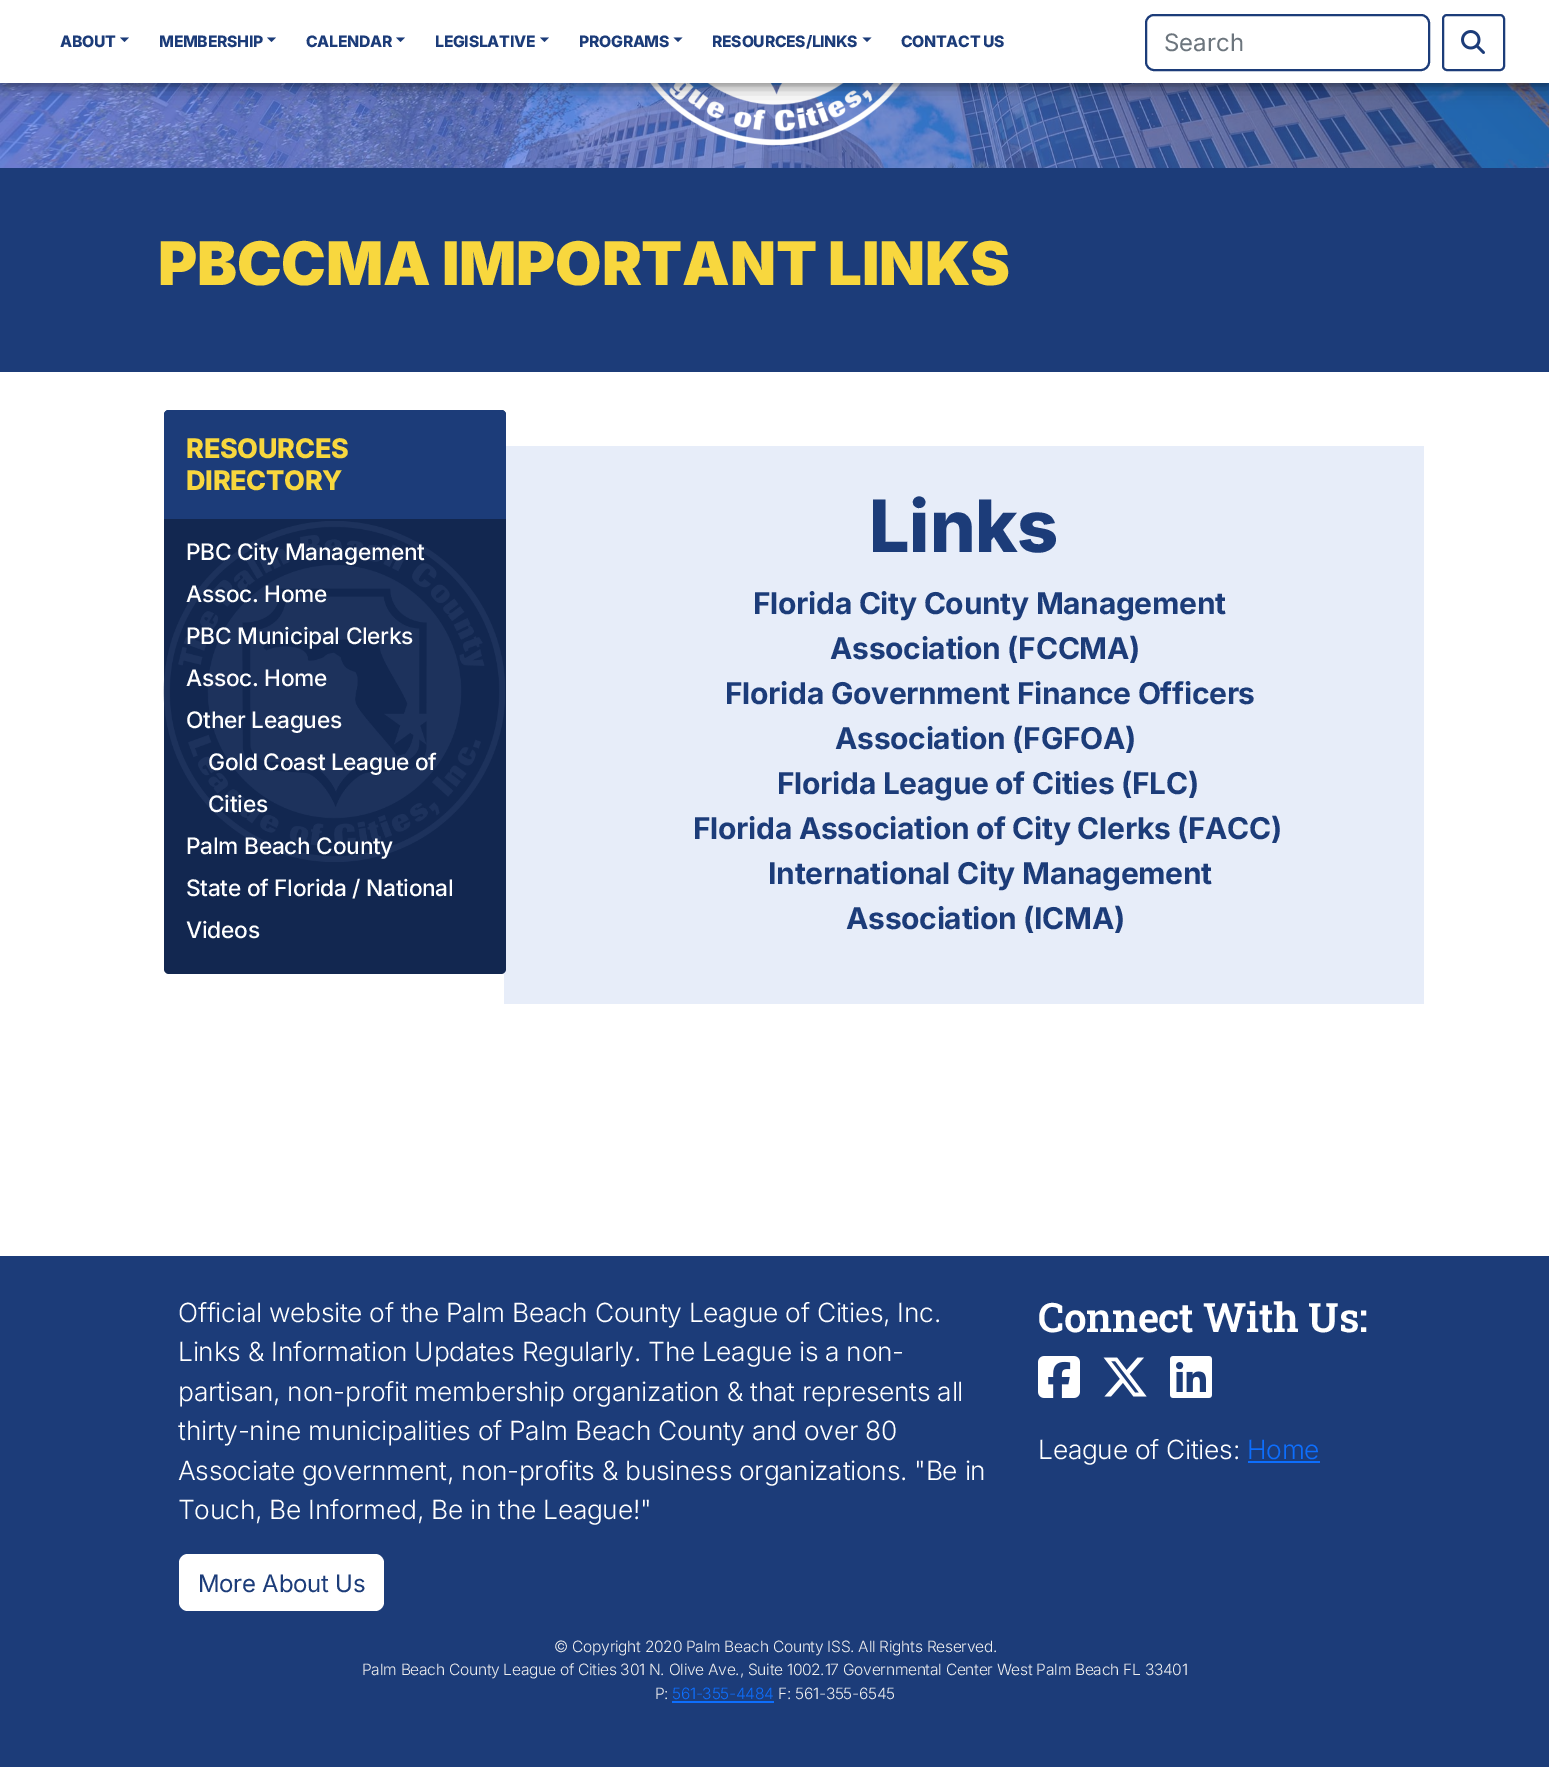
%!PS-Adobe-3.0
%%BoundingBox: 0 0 1549 1767
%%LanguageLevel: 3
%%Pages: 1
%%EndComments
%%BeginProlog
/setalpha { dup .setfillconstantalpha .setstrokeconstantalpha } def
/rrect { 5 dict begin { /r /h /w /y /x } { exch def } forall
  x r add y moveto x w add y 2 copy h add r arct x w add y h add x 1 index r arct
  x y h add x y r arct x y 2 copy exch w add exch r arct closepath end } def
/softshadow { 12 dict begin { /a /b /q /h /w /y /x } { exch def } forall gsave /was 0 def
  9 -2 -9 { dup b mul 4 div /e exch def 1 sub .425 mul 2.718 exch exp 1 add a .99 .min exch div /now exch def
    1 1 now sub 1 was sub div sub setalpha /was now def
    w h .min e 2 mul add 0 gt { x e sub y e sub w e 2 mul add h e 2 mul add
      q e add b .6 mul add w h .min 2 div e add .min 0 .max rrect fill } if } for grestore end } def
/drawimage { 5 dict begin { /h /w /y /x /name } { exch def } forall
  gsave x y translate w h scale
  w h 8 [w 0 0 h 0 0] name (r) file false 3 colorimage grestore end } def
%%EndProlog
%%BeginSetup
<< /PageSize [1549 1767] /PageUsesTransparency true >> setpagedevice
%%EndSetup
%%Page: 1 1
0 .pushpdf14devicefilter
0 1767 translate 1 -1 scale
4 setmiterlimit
1 setgray
0 0 1549 1767 rectfill
(images/2.raw) 0 83 1549 85 drawimage
(images/3.raw) 650 83 251 63 drawimage
0 setgray
0 3 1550 83 0 3 0.2 softshadow
0 6 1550 83 0 9 0.3 softshadow
1 setgray
0 0 1549 83 rectfill
0.11 0.235 0.475 setrgbcolor
newpath 120 37.5 moveto 129 37.5 lineto 124.5 42 lineto closepath fill
newpath 267 37.5 moveto 276 37.5 lineto 271.5 42 lineto closepath fill
newpath 396 37.5 moveto 405 37.5 lineto 400.5 42 lineto closepath fill
newpath 540 37.5 moveto 549 37.5 lineto 544.5 42 lineto closepath fill
newpath 673.5 37.5 moveto 682.5 37.5 lineto 678 42 lineto closepath fill
newpath 862.5 37.5 moveto 871.5 37.5 lineto 867 42 lineto closepath fill
2 setlinewidth
1146 15 283 55 8 rrect stroke
1443 15 61 55 4 rrect stroke
(images/1.raw) 1461 30 24 24 drawimage
0 168 1549 204 rectfill
0.906 0.929 0.976 setrgbcolor
504 446 920 558 rectfill
0.071 0.153 0.314 setrgbcolor
164 410 342 564 5 rrect fill
(images/4.raw) 163 521 342 341 drawimage
0.11 0.235 0.475 setrgbcolor
newpath 169 410 moveto 501 410 lineto 504 410 506 412 506 415 curveto 506 519 lineto 164 519 lineto 164 415 lineto 164 412 166 410 169 410 curveto closepath fill
0 1256 1549 511 rectfill
1 setgray
179 1554 205 57 9 rrect fill
(images/5.raw) 1038 1356 42 42 drawimage
(images/6.raw) 1103 1357 44 40 drawimage
(images/7.raw) 1170 1356 42 42 drawimage
0.051 0.431 0.992 setrgbcolor
1248 1461 72 2 rectfill
672 1701 102 2 rectfill
/Inter-ExtraBold [15.75 0 0 -15.75 0 0] selectfont
0.11 0.235 0.475 setrgbcolor
60 47 moveto -0.3 0 (ABOUT) ashow
159 47 moveto -0.3 0 (MEMBERSHIP) ashow
306 47 moveto -0.3 0 (CALENDAR) ashow
435 47 moveto -0.3 0 (LEGISLATIVE) ashow
579 47 moveto -0.3 0 (PROGRAMS) ashow
712 47 moveto -0.3 0 (RESOURCES/LINKS) ashow
901 47 moveto -0.3 0 (CONTACT US) ashow
/Inter-Regular [24 0 0 -24 0 0] selectfont
0.424 0.459 0.49 setrgbcolor
1164 51 moveto (Search) show
/Inter-Black [60 0 0 -60 0 0] selectfont
0.973 0.843 0.243 setrgbcolor
158 285 moveto -0.3 0 (PBCCMA IMPORTANT LINKS) ashow
/Inter-ExtraBold [27 0 0 -27 0 0] selectfont
186 458 moveto -0.3 0 (RESOURCES) ashow
186 490 moveto -0.3 0 (DIRECTORY) ashow
/Inter-Medium [22.75 0 0 -22.75 0 0] selectfont
1 setgray
186 560 moveto -0.3 0 (PBC City Management) ashow
186 602 moveto -0.3 0 (Assoc. Home) ashow
186 644 moveto -0.3 0 (PBC Municipal Clerks) ashow
186 686 moveto -0.3 0 (Assoc. Home) ashow
186 728 moveto -0.3 0 (Other Leagues) ashow
208 770 moveto -0.3 0 (Gold Coast League of) ashow
208 812 moveto -0.3 0 (Cities) ashow
186 854 moveto -0.3 0 (Palm Beach County) ashow
186 896 moveto -0.3 0 (State of Florida / National) ashow
186 938 moveto -0.3 0 (Videos) ashow
/Inter-ExtraBold [72 0 0 -72 0 0] selectfont
0.11 0.235 0.475 setrgbcolor
869 552 moveto -0.3 0 (Links) ashow
/Inter-Bold [30 0 0 -30 0 0] selectfont
753 614 moveto -0.3 0 (Florida City County Management) ashow
830 659 moveto -0.3 0 (Association \(FCCMA\)) ashow
725 704 moveto -0.3 0 (Florida Government Finance Officers) ashow
835 749 moveto -0.3 0 (Association \(FGFOA\)) ashow
777 794 moveto -0.3 0 (Florida League of Cities \(FLC\)) ashow
693 839 moveto -0.3 0 (Florida Association of City Clerks \(FACC\)) ashow
768 884 moveto -0.3 0 (International City Management) ashow
846 929 moveto -0.3 0 (Association \(ICMA\)) ashow
/Inter-Light [26.4 0 0 -26.4 0 0] selectfont
1 setgray
178 1322 moveto -0.3 0 (Official website of the Palm Beach County League of Cities, Inc.) ashow
178 1361 moveto -0.3 0 (Links & Information Updates Regularly. The League is a non-) ashow
178 1401 moveto -0.3 0 (partisan, non-profit membership organization & that represents all) ashow
178 1440 moveto -0.3 0 (thirty-nine municipalities of Palm Beach County and over 80) ashow
178 1480 moveto -0.3 0 (Associate government, non-profits & business organizations. "Be in) ashow
178 1519 moveto -0.3 0 (Touch, Be Informed, Be in the League!") ashow
/Inter-Regular [24 0 0 -24 0 0] selectfont
0.11 0.235 0.475 setrgbcolor
198 1592 moveto -0.3 0 (More About Us) ashow
/RobotoSlab-SemiBold [40.5 0 0 -40.5 0 0] selectfont
1 setgray
1038 1332 moveto -0.3 0 (Connect With Us:) ashow
/Inter-Light [26.4 0 0 -26.4 0 0] selectfont
1038 1459 moveto -0.3 0 (League of Cities:) ashow
0.051 0.431 0.992 setrgbcolor
1247 1459 moveto -0.3 0 (Home) ashow
/Inter-Light [15.6 0 0 -15.6 0 0] selectfont
0.937 setgray
554 1652 moveto -0.3 0 (© Copyright 2020 Palm Beach County ISS. All Rights Reserved.) ashow
362 1675 moveto -0.3 0 (Palm Beach County League of Cities 301 N. Olive Ave., Suite 1002.17 Governmental Center West Palm Beach FL 33401) ashow
655 1699 moveto -0.3 0 (P:) ashow
0.051 0.431 0.992 setrgbcolor
672 1699 moveto -0.3 0 (561-355-4484) ashow
0.937 setgray
778 1699 moveto -0.3 0 (F: 561-355-6545) ashow
.poppdf14devicefilter showpage
%%EOF
